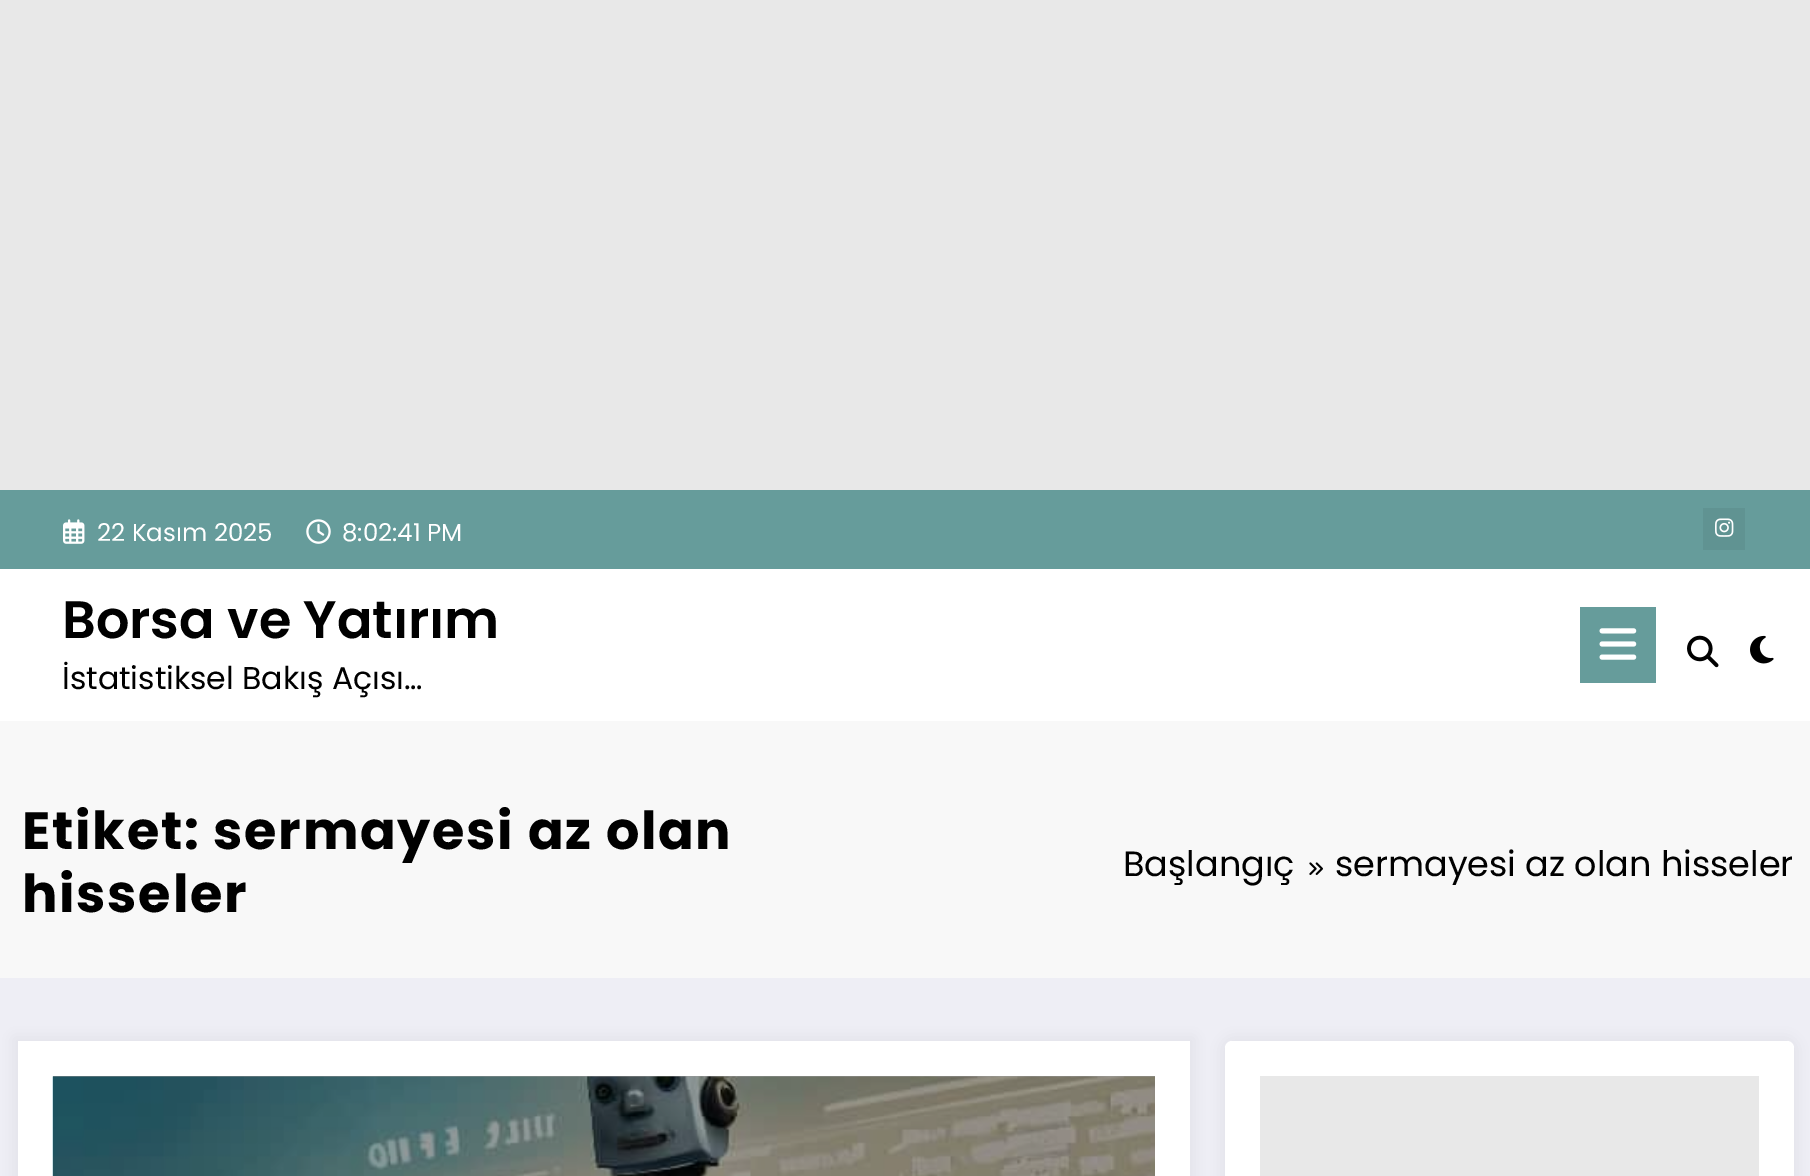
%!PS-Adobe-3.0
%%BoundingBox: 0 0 1810 1176
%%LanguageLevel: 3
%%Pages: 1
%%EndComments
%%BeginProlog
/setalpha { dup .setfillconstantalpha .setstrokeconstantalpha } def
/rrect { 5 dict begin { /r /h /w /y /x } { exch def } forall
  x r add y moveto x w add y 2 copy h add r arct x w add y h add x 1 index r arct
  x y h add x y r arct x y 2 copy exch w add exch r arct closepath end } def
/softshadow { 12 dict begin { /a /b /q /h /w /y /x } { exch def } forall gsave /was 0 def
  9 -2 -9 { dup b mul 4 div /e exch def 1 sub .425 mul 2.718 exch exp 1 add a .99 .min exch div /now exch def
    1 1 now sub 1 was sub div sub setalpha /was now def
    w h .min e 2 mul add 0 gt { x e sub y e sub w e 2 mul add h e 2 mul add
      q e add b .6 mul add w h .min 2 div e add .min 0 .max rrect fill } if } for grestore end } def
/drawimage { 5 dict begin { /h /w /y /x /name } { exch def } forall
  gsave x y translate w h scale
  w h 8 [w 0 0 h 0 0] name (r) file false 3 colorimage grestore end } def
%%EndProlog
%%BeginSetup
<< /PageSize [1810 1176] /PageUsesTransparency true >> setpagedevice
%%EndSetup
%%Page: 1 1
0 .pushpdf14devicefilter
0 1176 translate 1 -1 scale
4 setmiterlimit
0.91 setgray
0 0 1810 1176 rectfill
0.933 0.933 0.961 setrgbcolor
0 978 1810 198 rectfill
0.4 0.612 0.608 setrgbcolor
0 490 1810 79 rectfill
(images/1.raw) 63 519 22 25 drawimage
(images/2.raw) 306 519 25 25 drawimage
0.376 0.576 0.573 setrgbcolor
1703 508 42 42 rectfill
(images/3.raw) 1715 518 19 19 drawimage
1 setgray
0 569 1810 152 rectfill
0.4 0.612 0.608 setrgbcolor
1580 607 76 76 rectfill
(images/4.raw) 1599 628 38 32 drawimage
(images/5.raw) 1687 635 32 33 drawimage
(images/6.raw) 1750 635 24 29 drawimage
0.973 setgray
0 721 1810 257 rectfill
(images/7.raw) 1309 862 14 13 drawimage
0.09 0.09 0.137 setrgbcolor
14 1038 1180 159 0 7 0.05 softshadow
1 setgray
18 1041 1172 135 rectfill
0.6 setgray
53 1076 1102 1 rectfill
(images/8.raw) 52 1076 1103 100 drawimage
0.09 0.09 0.137 setrgbcolor
1222 1038 575 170 11 7 0.05 softshadow
1 setgray
1225 1041 569 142 7 rrect fill
0.91 setgray
1260 1076 499 100 rectfill
/Poppins-Regular [24.5 0 0 -24.5 0 0] selectfont
1 setgray
97 541 moveto (22 Kasım 2025) show
342 541 moveto (8:02:41 PM) show
/Poppins-SemiBold [52.5 0 0 -52.5 0 0] selectfont
0 setgray
62 638 moveto (Borsa ve Yatırım) show
/Poppins-Regular [31.5 0 0 -31.5 0 0] selectfont
62 689 moveto (İstatistiksel Bakış Açısı…) show
/Poppins-Bold [52.5 0 0 -52.5 0 0] selectfont
22 849 moveto 1.75 0 (Etiket: sermayesi az olan) ashow
22 912 moveto 1.75 0 (hisseler) ashow
/Poppins-Regular [35 0 0 -35 0 0] selectfont
1123 876 moveto (Başlangıç) show
1335 876 moveto (sermayesi az olan hisseler) show
.poppdf14devicefilter showpage
%%EOF
